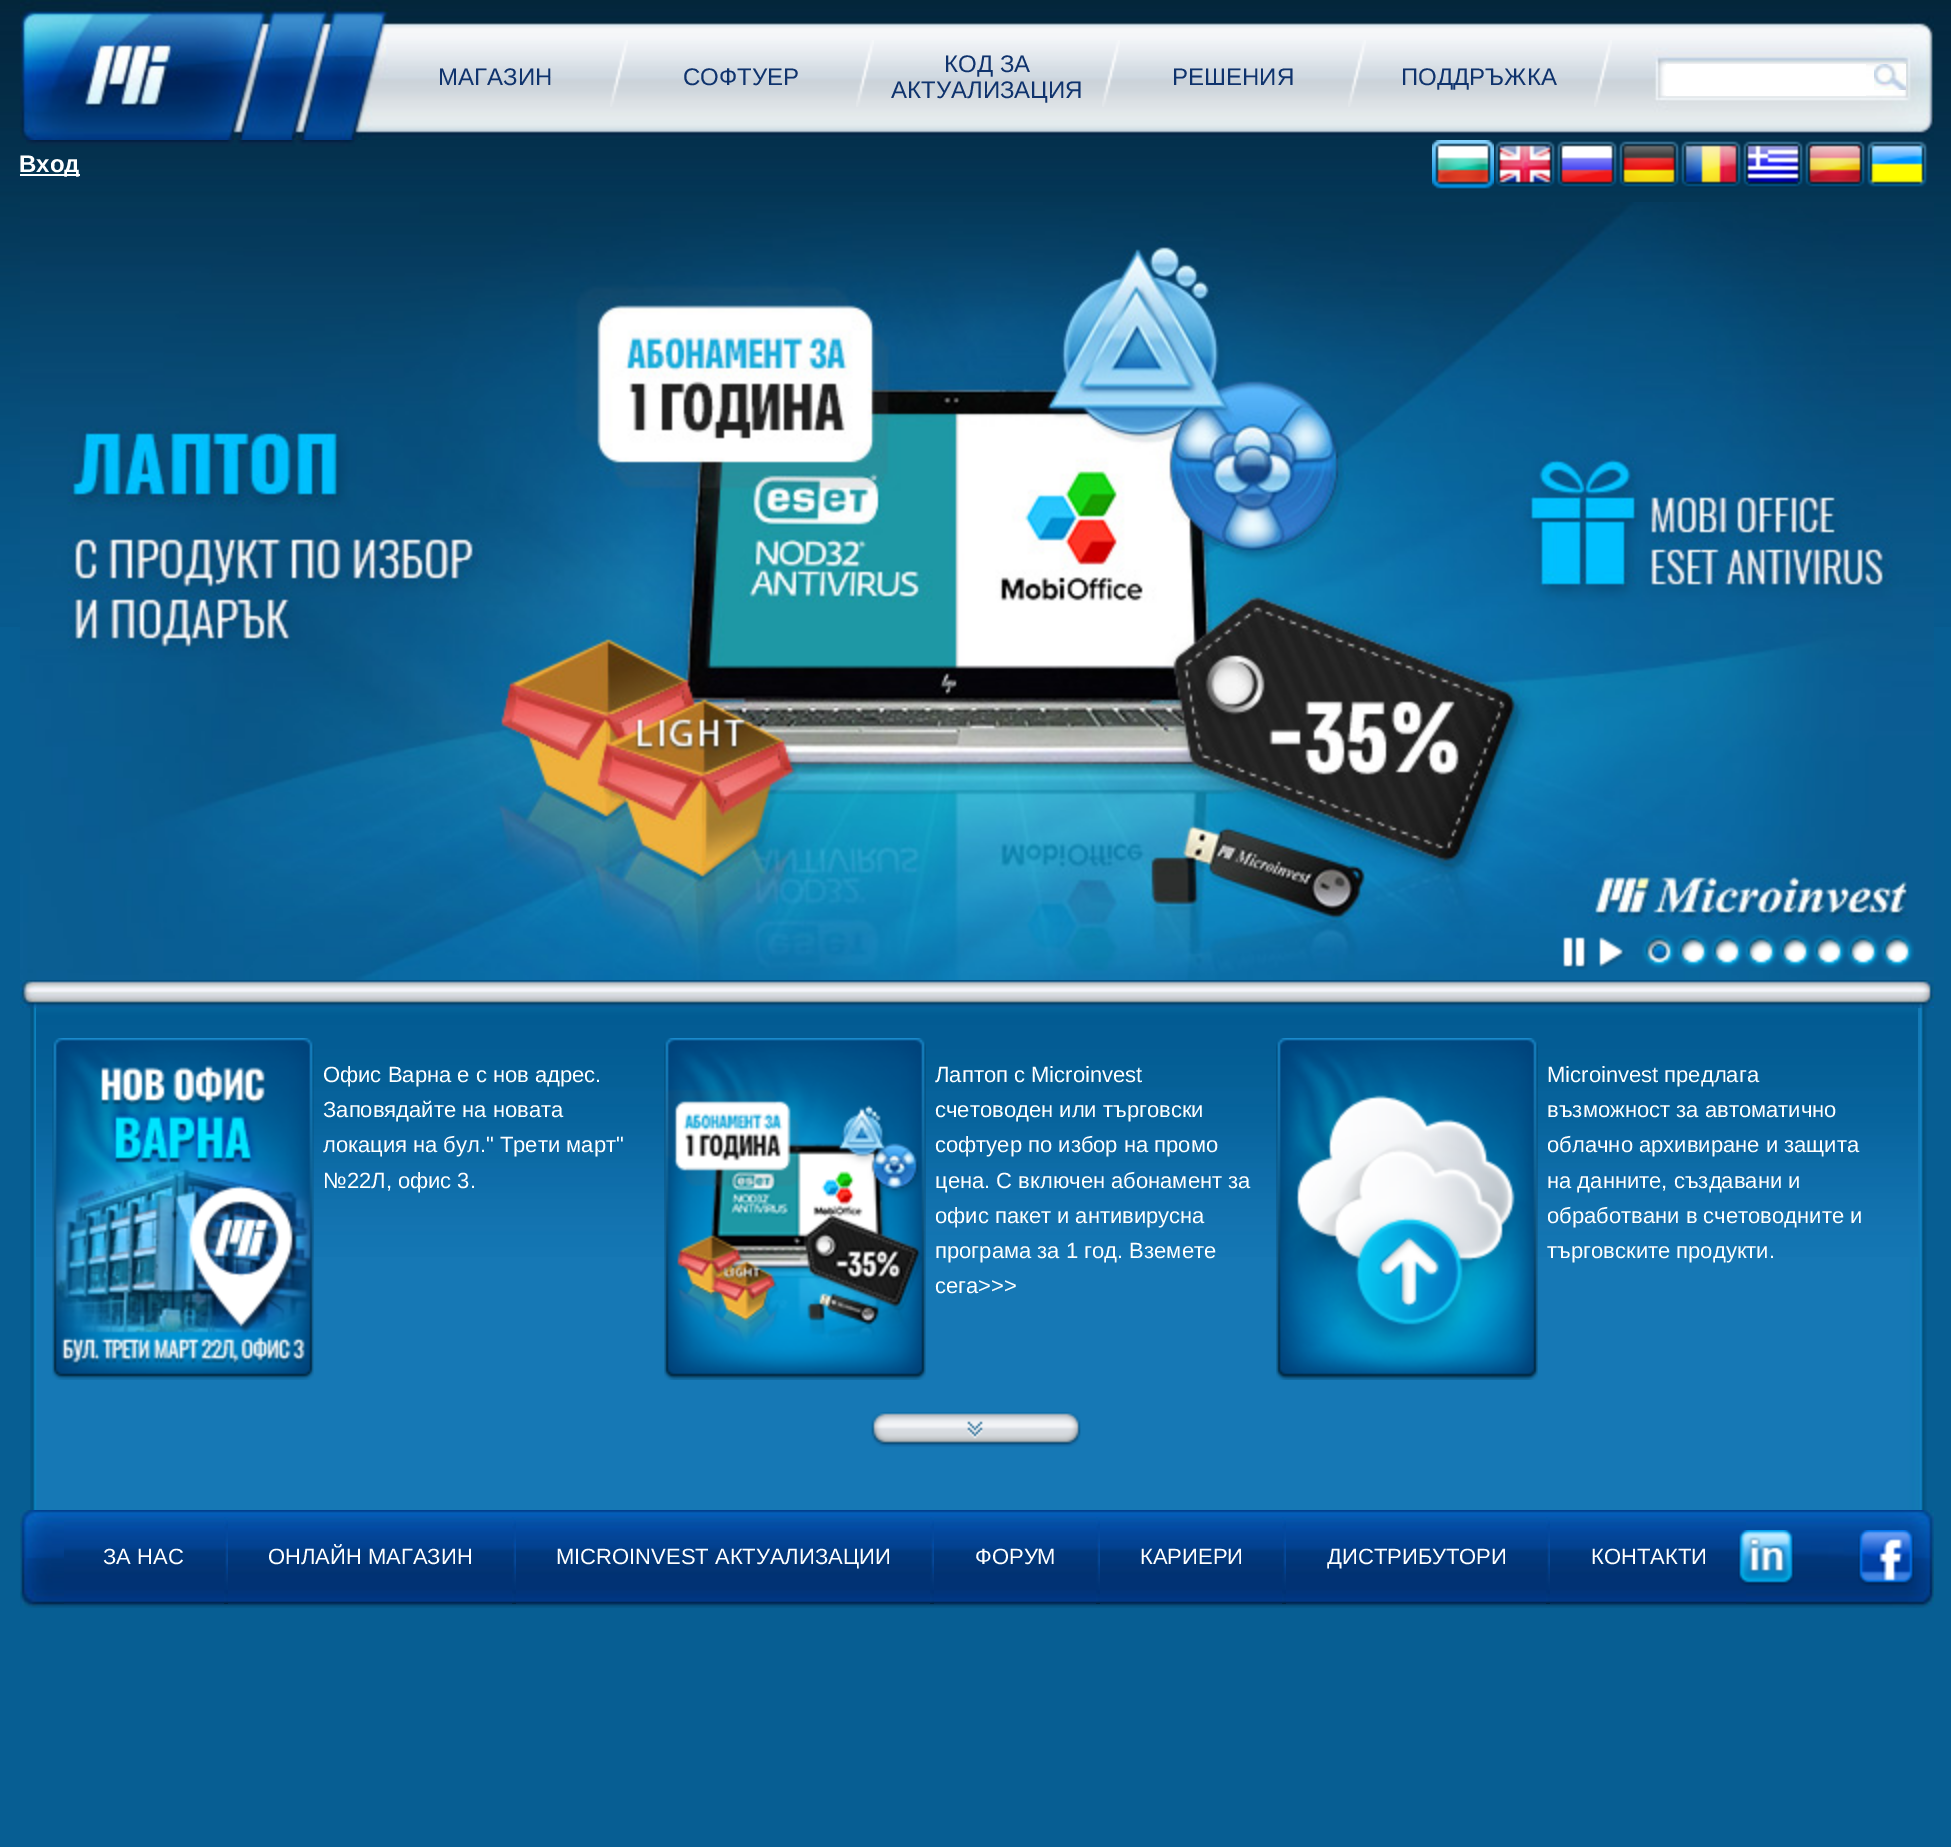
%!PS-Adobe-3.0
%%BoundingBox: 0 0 1951 1847
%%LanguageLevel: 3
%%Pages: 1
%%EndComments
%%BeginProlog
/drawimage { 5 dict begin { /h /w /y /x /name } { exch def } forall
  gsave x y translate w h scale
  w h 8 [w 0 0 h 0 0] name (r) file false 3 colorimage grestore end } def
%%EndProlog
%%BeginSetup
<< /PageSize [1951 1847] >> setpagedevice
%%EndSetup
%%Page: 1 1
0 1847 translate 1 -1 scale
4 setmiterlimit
0.027 0.369 0.576 setrgbcolor
0 0 1951 1847 rectfill
(images/1.raw) 0 0 1951 627 drawimage
(images/2.raw) 20 0 1914 140 drawimage
(images/3.raw) 610 40 18 67 drawimage
(images/3.raw) 856 40 18 67 drawimage
(images/3.raw) 1102 40 18 67 drawimage
(images/3.raw) 1348 40 18 67 drawimage
(images/3.raw) 1594 40 18 67 drawimage
1 setgray
1666 64 200 32 rectfill
(images/4.raw) 1874 64 32 26 drawimage
(images/5.raw) 26 140 329 7 drawimage
20 174 60 2 rectfill
(images/6.raw) 1432 140 62 50 drawimage
(images/7.raw) 1494 141 62 47 drawimage
(images/8.raw) 1556 141 62 47 drawimage
(images/9.raw) 1618 141 62 47 drawimage
(images/10.raw) 1680 141 62 47 drawimage
(images/11.raw) 1742 141 62 47 drawimage
(images/12.raw) 1804 141 62 47 drawimage
(images/13.raw) 1866 141 62 46 drawimage
(images/14.raw) 20 202 1914 778 drawimage
(images/15.raw) 1563 937 25 33 drawimage
(images/16.raw) 1599 937 27 32 drawimage
(images/17.raw) 1642 934 34 34 drawimage
(images/18.raw) 1676 934 34 34 drawimage
(images/19.raw) 1710 934 34 34 drawimage
(images/20.raw) 1744 934 34 34 drawimage
(images/21.raw) 1778 934 34 34 drawimage
(images/22.raw) 1812 934 34 34 drawimage
(images/23.raw) 1846 934 34 34 drawimage
(images/24.raw) 1880 934 34 34 drawimage
(images/25.raw) 20 980 1914 28 drawimage
(images/26.raw) 30 1008 1897 502 drawimage
(images/27.raw) 36 1008 1882 249 drawimage
(images/28.raw) 52 1038 262 342 drawimage
(images/29.raw) 664 1038 262 342 drawimage
(images/30.raw) 1276 1038 262 342 drawimage
(images/31.raw) 871 1412 210 35 drawimage
(images/32.raw) 20 1510 1914 98 drawimage
(images/33.raw) 64 1520 160 84 drawimage
(images/34.raw) 224 1517 4 87 drawimage
(images/35.raw) 228 1520 284 84 drawimage
(images/34.raw) 512 1517 4 87 drawimage
(images/36.raw) 516 1520 414 84 drawimage
(images/34.raw) 930 1517 4 87 drawimage
(images/37.raw) 934 1520 162 84 drawimage
(images/34.raw) 1096 1517 4 87 drawimage
(images/38.raw) 1100 1520 182 84 drawimage
(images/34.raw) 1282 1517 4 87 drawimage
(images/39.raw) 1286 1520 260 84 drawimage
(images/34.raw) 1546 1517 4 87 drawimage
(images/40.raw) 1550 1520 196 84 drawimage
(images/41.raw) 1738 1530 56 56 drawimage
(images/42.raw) 1858 1530 56 56 drawimage
/LiberationSans-Regular [24 0 0 -24 0 0] selectfont
0.059 0.2 0.427 setrgbcolor
438 85 moveto (МАГАЗИН) show
683 85 moveto (СОФТУЕР) show
944 72 moveto (КОД ЗА) show
891 98 moveto (АКТУАЛИЗАЦИЯ) show
1172 85 moveto (РЕШЕНИЯ) show
1401 85 moveto (ПОДДРЪЖКА) show
/LiberationSans-Bold [24 0 0 -24 0 0] selectfont
1 setgray
19 172 moveto (Вход) show
/LiberationSans-Regular [22 0 0 -22 0 0] selectfont
323 1082 moveto (Офис Варна е с нов адрес.) show
323 1117 moveto (Заповядайте на новата) show
323 1152 moveto (локация на бул." Трети март") show
323 1188 moveto (№22Л, офис 3.) show
935 1082 moveto (Лаптоп с Microinvest) show
935 1117 moveto (счетоводен или търговски) show
935 1152 moveto (софтуер по избор на промо) show
935 1188 moveto (цена. С включен абонамент за) show
935 1223 moveto (офис пакет и антивирусна) show
935 1258 moveto (програма за 1 год. Вземете) show
935 1293 moveto (сега>>>) show
1547 1082 moveto (Microinvest предлага) show
1547 1117 moveto (възможност за автоматично) show
1547 1152 moveto (облачно архивиране и защита) show
1547 1188 moveto (на данните, създавани и) show
1547 1223 moveto (обработвани в счетоводните и) show
1547 1258 moveto (търговските продукти.) show
103 1564 moveto (ЗА НАС) show
268 1564 moveto (ОНЛАЙН МАГАЗИН) show
556 1564 moveto (MICROINVEST АКТУАЛИЗАЦИИ) show
975 1564 moveto (ФОРУМ) show
1140 1564 moveto (КАРИЕРИ) show
1327 1564 moveto (ДИСТРИБУТОРИ) show
1591 1564 moveto (КОНТАКТИ) show
showpage
%%EOF
